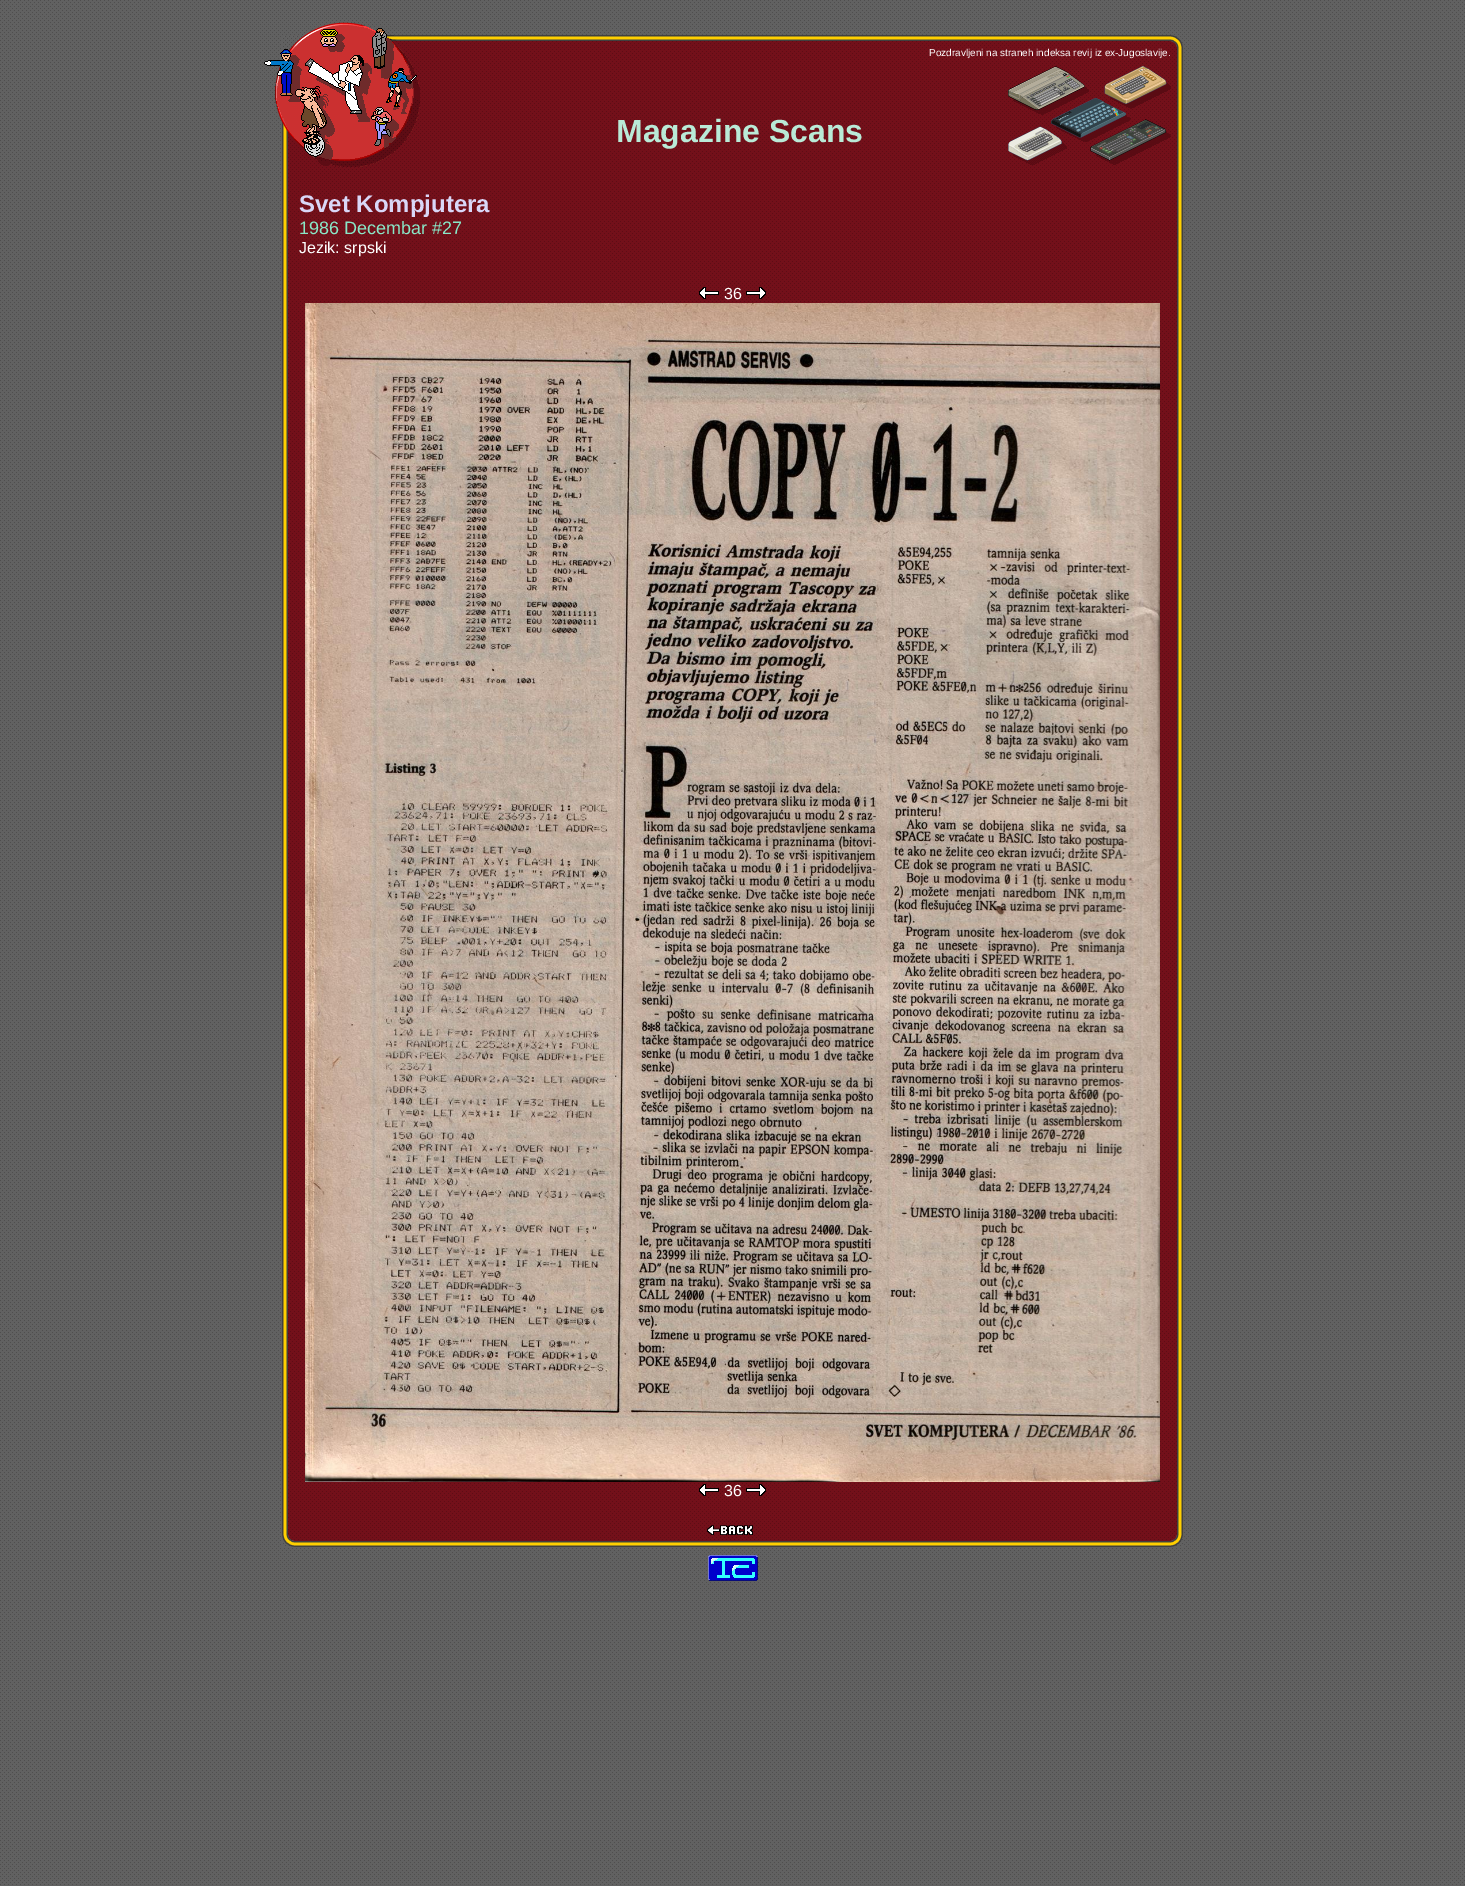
%!PS-Adobe-3.0
%%BoundingBox: 0 0 1465 1886
%%LanguageLevel: 3
%%Pages: 1
%%EndComments
%%BeginProlog
/drawimage { 5 dict begin { /h /w /y /x /name } { exch def } forall
  gsave x y translate w h scale
  w h 8 [w 0 0 h 0 0] name (r) file false 3 colorimage grestore end } def
%%EndProlog
%%BeginSetup
<< /PageSize [1465 1886] >> setpagedevice
%%EndSetup
%%Page: 1 1
0 1886 translate 1 -1 scale
4 setmiterlimit
0.38 setgray
0 0 1465 1886 rectfill
(images/1.raw) 0 0 1465 1885 drawimage
(images/2.raw) 305 22 82 13 drawimage
(images/3.raw) 264 52 18 70 drawimage
(images/4.raw) 288 41 889 1500 drawimage
(images/5.raw) 282 35 12 12 drawimage
(images/6.raw) 398 35 773 6 drawimage
(images/7.raw) 294 35 104 12 drawimage
(images/8.raw) 1171 35 12 12 drawimage
(images/9.raw) 282 139 6 1396 drawimage
(images/10.raw) 282 47 12 92 drawimage
(images/11.raw) 294 47 126 120 drawimage
(images/12.raw) 1008 66 163 99 drawimage
(images/13.raw) 699 287 20 12 drawimage
(images/14.raw) 746 287 20 12 drawimage
(images/15.raw) 305 303 855 1179 drawimage
(images/16.raw) 699 1484 20 12 drawimage
(images/17.raw) 746 1484 20 12 drawimage
(images/18.raw) 707 1525 46 10 drawimage
(images/19.raw) 1177 47 6 1488 drawimage
(images/20.raw) 282 1535 12 12 drawimage
(images/21.raw) 294 1541 877 6 drawimage
(images/22.raw) 1171 1535 12 12 drawimage
(images/23.raw) 708 1555 50 26 drawimage
/LiberationSans-Regular [10 0 0 -10 0 0] selectfont
1 setgray
929 56 moveto (Pozdravljeni na straneh indeksa revij iz ex-Jugoslavije.) show
/LiberationSans-Bold [32 0 0 -32 0 0] selectfont
0.725 0.918 0.843 setrgbcolor
616 142 moveto (Magazine Scans) show
/LiberationSans-Bold [24 0 0 -24 0 0] selectfont
0.851 0.843 0.969 setrgbcolor
299 212 moveto (Svet Kompjutera) show
/LiberationSans-Regular [18 0 0 -18 0 0] selectfont
0.537 0.906 0.78 setrgbcolor
299 234 moveto (1986 Decembar #27) show
/LiberationSans-Regular [16 0 0 -16 0 0] selectfont
1 setgray
299 253 moveto (Jezik: srpski) show
724 299 moveto (36) show
724 1496 moveto (36) show
showpage
%%EOF
